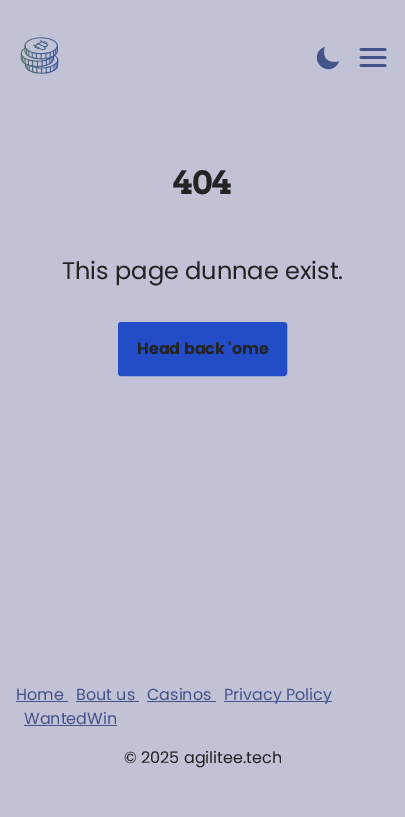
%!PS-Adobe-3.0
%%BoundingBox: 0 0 405 817
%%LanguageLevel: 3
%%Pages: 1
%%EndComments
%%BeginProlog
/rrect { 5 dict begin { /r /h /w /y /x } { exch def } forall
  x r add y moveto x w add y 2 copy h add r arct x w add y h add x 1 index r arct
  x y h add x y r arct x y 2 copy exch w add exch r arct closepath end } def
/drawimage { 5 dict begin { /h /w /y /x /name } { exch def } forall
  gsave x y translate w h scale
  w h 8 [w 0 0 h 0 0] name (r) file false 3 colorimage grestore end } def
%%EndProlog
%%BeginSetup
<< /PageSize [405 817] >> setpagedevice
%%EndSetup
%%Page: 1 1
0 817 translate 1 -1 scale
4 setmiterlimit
0.761 0.761 0.839 setrgbcolor
0 0 405 817 rectfill
(images/1.raw) 20 37 39 37 drawimage
(images/2.raw) 316 46 24 24 drawimage
0.259 0.329 0.541 setrgbcolor
2.7 setlinewidth
1 setlinecap
1 setlinejoin
newpath 361 49.5 moveto 385 49.5 lineto 361 57.5 moveto 385 57.5 lineto 361 65.5 moveto 385 65.5 lineto stroke
0.137 0.298 0.78 setrgbcolor
119.5 323.5 166 51 1.5 rrect gsave fill grestore
3 setlinewidth
0 setlinecap
0 setlinejoin
stroke
0.259 0.329 0.541 setrgbcolor
16 701 52 1 rectfill
76 701 63 1 rectfill
147 701 69 1 rectfill
224 701 108 1 rectfill
24 725 93 1 rectfill
/Arvo-Bold [32 0 0 -32 0 0] selectfont
0.137 0.137 0.141 setrgbcolor
173 194 moveto (404) show
/Poppins-Regular [24 0 0 -24 0 0] selectfont
62 279 moveto (This page dunnae exist.) show
/Poppins-Bold [16 0 0 -16 0 0] selectfont
137 354 moveto (Head back 'ome) show
/Poppins-Regular [16 0 0 -16 0 0] selectfont
0.259 0.329 0.541 setrgbcolor
16 700 moveto (Home) show
76 700 moveto (Bout us) show
147 700 moveto (Casinos) show
224 700 moveto (Privacy Policy) show
24 724 moveto (WantedWin) show
0.137 0.137 0.141 setrgbcolor
124 763 moveto (© 2025 agilitee.tech) show
showpage
%%EOF
